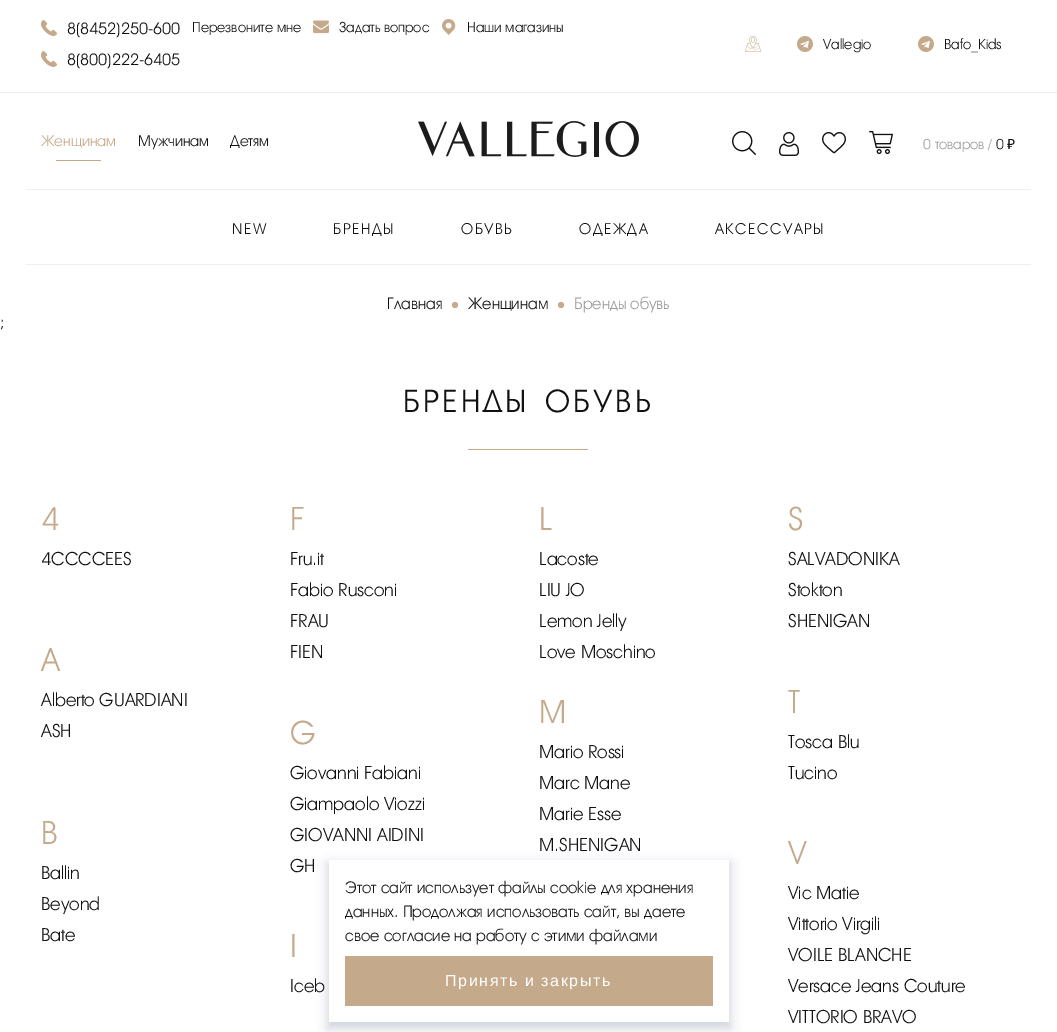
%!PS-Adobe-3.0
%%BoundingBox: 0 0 1057 1032
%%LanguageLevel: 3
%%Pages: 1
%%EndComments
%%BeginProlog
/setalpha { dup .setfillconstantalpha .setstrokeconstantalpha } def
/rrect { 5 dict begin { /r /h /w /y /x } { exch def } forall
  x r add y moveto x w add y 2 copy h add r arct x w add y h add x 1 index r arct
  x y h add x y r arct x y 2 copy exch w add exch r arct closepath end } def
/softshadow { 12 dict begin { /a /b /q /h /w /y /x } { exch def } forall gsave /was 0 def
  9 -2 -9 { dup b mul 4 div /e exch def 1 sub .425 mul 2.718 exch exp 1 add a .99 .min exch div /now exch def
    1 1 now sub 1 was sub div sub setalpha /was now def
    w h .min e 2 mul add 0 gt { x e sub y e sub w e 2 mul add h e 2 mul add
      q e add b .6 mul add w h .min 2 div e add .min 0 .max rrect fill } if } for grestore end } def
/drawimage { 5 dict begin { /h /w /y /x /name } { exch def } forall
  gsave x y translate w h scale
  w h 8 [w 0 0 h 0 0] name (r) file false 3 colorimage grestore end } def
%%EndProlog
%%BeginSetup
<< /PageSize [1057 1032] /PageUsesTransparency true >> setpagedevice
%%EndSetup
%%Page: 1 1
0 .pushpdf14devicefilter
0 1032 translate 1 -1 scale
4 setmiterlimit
1 setgray
0 0 1057 1032 rectfill
(images/1.raw) 41 20 16 16 drawimage
(images/1.raw) 41 51 16 16 drawimage
(images/2.raw) 313 20 16 14 drawimage
(images/3.raw) 442 19 14 16 drawimage
(images/4.raw) 745 36 16 16 drawimage
(images/5.raw) 797 36 16 16 drawimage
(images/5.raw) 918 36 16 16 drawimage
0.937 setgray
0 92 1057 1 rectfill
0.769 0.663 0.545 setrgbcolor
56 160 45 1 rectfill
(images/6.raw) 418 121 221 36 drawimage
(images/7.raw) 732 131 24 24 drawimage
(images/8.raw) 779 132 20 24 drawimage
(images/9.raw) 822 132 24 22 drawimage
(images/10.raw) 869 131 24 23 drawimage
0.937 setgray
26 189 1005 1 rectfill
26 264 1005 1 rectfill
0.769 0.663 0.545 setrgbcolor
newpath 455 305 3 0 360 arc closepath fill
newpath 561 305 3 0 360 arc closepath fill
468 449 120 1 rectfill
0.133 0.235 0.314 setrgbcolor
327 863 404 166 0 5 0.2 softshadow
1 setgray
329 860 400 162 rectfill
0.769 0.663 0.545 setrgbcolor
345 956 368 50 rectfill
/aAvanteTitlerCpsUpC-Light [16 0 0 -16 0 0] selectfont
0.067 setgray
67 34 moveto (8\(8452\)250-600) show
67 65 moveto (8\(800\)222-6405) show
/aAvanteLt-Light [14 0 0 -14 0 0] selectfont
192 32 moveto (Перезвоните мне) show
339 32 moveto (Задать вопрос) show
467 32 moveto (Наши магазины) show
823 49 moveto (Vallegio) show
944 49 moveto (Bafo_Kids) show
/aAvanteLt-Light [15 0 0 -15 0 0] selectfont
0.769 0.663 0.545 setrgbcolor
41 146 moveto (Женщинам) show
0.067 setgray
138 146 moveto (Мужчинам) show
230 146 moveto (Детям) show
/aAvanteLt-Light [14 0 0 -14 0 0] selectfont
0.6 setgray
923 149 moveto (0 товаров /) show
0.067 setgray
996 149 moveto (0) show
/NotoSans-Regular [14 0 0 -14 0 0] selectfont
1007 149 moveto (₽) show
/aAvanteLt-Light [15 0 0 -15 0 0] selectfont
232 234 moveto 1.5 0 (NEW) ashow
333 234 moveto 1.5 0 (БРЕНДЫ) ashow
461 234 moveto 1.5 0 (ОБУВЬ) ashow
579 234 moveto 1.5 0 (ОДЕЖДА) ashow
715 234 moveto 1.5 0 (АКСЕССУАРЫ) ashow
/aAvanteLt-Light [16 0 0 -16 0 0] selectfont
387 309 moveto (Главная) show
468 309 moveto (Женщинам) show
0.6 setgray
574 309 moveto (Бренды обувь) show
0.067 setgray
0 328 moveto (;) show
/aAvanteTitlerCpsUpC-Light [31 0 0 -31 0 0] selectfont
403 412 moveto 3.1 0 (БРЕНДЫ ОБУВЬ) ashow
/aAvanteLt-Light [32 0 0 -32 0 0] selectfont
0.769 0.663 0.545 setrgbcolor
41 530 moveto (4) show
/aAvanteLt-Light [18 0 0 -18 0 0] selectfont
0.067 setgray
41 565 moveto (4CCCCEES) show
/aAvanteLt-Light [32 0 0 -32 0 0] selectfont
0.769 0.663 0.545 setrgbcolor
41 671 moveto (A) show
/aAvanteLt-Light [18 0 0 -18 0 0] selectfont
0.067 setgray
41 706 moveto (Alberto GUARDIANI) show
41 737 moveto (ASH) show
/aAvanteLt-Light [32 0 0 -32 0 0] selectfont
0.769 0.663 0.545 setrgbcolor
41 844 moveto (B) show
/aAvanteLt-Light [18 0 0 -18 0 0] selectfont
0.067 setgray
41 879 moveto (Ballin) show
41 910 moveto (Beyond) show
41 941 moveto (Bate) show
/aAvanteLt-Light [32 0 0 -32 0 0] selectfont
0.769 0.663 0.545 setrgbcolor
290 530 moveto (F) show
/aAvanteLt-Light [18 0 0 -18 0 0] selectfont
0.067 setgray
290 565 moveto (Fru.it) show
290 596 moveto (Fabio Rusconi) show
290 627 moveto (FRAU) show
290 658 moveto (FIEN) show
/aAvanteLt-Light [32 0 0 -32 0 0] selectfont
0.769 0.663 0.545 setrgbcolor
290 744 moveto (G) show
/aAvanteLt-Light [18 0 0 -18 0 0] selectfont
0.067 setgray
290 779 moveto (Giovanni Fabiani) show
290 810 moveto (Giampaolo Viozzi) show
290 841 moveto (GIOVANNI AIDINI) show
290 872 moveto (GH) show
/aAvanteLt-Light [32 0 0 -32 0 0] selectfont
0.769 0.663 0.545 setrgbcolor
290 957 moveto (I) show
/aAvanteLt-Light [18 0 0 -18 0 0] selectfont
0.067 setgray
290 992 moveto (Iceb) show
/aAvanteLt-Light [32 0 0 -32 0 0] selectfont
0.769 0.663 0.545 setrgbcolor
539 530 moveto (L) show
/aAvanteLt-Light [18 0 0 -18 0 0] selectfont
0.067 setgray
539 565 moveto (Lacoste) show
539 596 moveto (LIU JO) show
539 627 moveto (Lemon Jelly) show
539 658 moveto (Love Moschino) show
/aAvanteLt-Light [32 0 0 -32 0 0] selectfont
0.769 0.663 0.545 setrgbcolor
539 723 moveto (M) show
/aAvanteLt-Light [18 0 0 -18 0 0] selectfont
0.067 setgray
539 758 moveto (Mario Rossi) show
539 789 moveto (Marc Mane) show
539 820 moveto (Marie Esse) show
539 851 moveto (M.SHENIGAN) show
/aAvanteLt-Light [32 0 0 -32 0 0] selectfont
0.769 0.663 0.545 setrgbcolor
788 530 moveto (S) show
/aAvanteLt-Light [18 0 0 -18 0 0] selectfont
0.067 setgray
788 565 moveto (SALVADONIKA) show
788 596 moveto (Stokton) show
788 627 moveto (SHENIGAN) show
/aAvanteLt-Light [32 0 0 -32 0 0] selectfont
0.769 0.663 0.545 setrgbcolor
788 713 moveto (T) show
/aAvanteLt-Light [18 0 0 -18 0 0] selectfont
0.067 setgray
788 748 moveto (Tosca Blu) show
788 779 moveto (Tucino) show
/aAvanteLt-Light [32 0 0 -32 0 0] selectfont
0.769 0.663 0.545 setrgbcolor
788 864 moveto (V) show
/aAvanteLt-Light [18 0 0 -18 0 0] selectfont
0.067 setgray
788 899 moveto (Vic Matie) show
788 930 moveto (Vittorio Virgili) show
788 961 moveto (VOILE BLANCHE) show
788 992 moveto (Versace Jeans Couture) show
788 1023 moveto (VITTORIO BRAVO) show
/aAvanteLt-Light [16 0 0 -16 0 0] selectfont
345 893 moveto (Этот сайт использует файлы cookie для хранения) show
345 917 moveto (данных. Продолжая использовать сайт, вы даете) show
345 941 moveto (свое согласие на работу с этими файлами) show
/LiberationSans-Regular [16 0 0 -16 0 0] selectfont
1 setgray
445 986 moveto 1.6 0 (Принять и закрыть) ashow
.poppdf14devicefilter showpage
%%EOF
